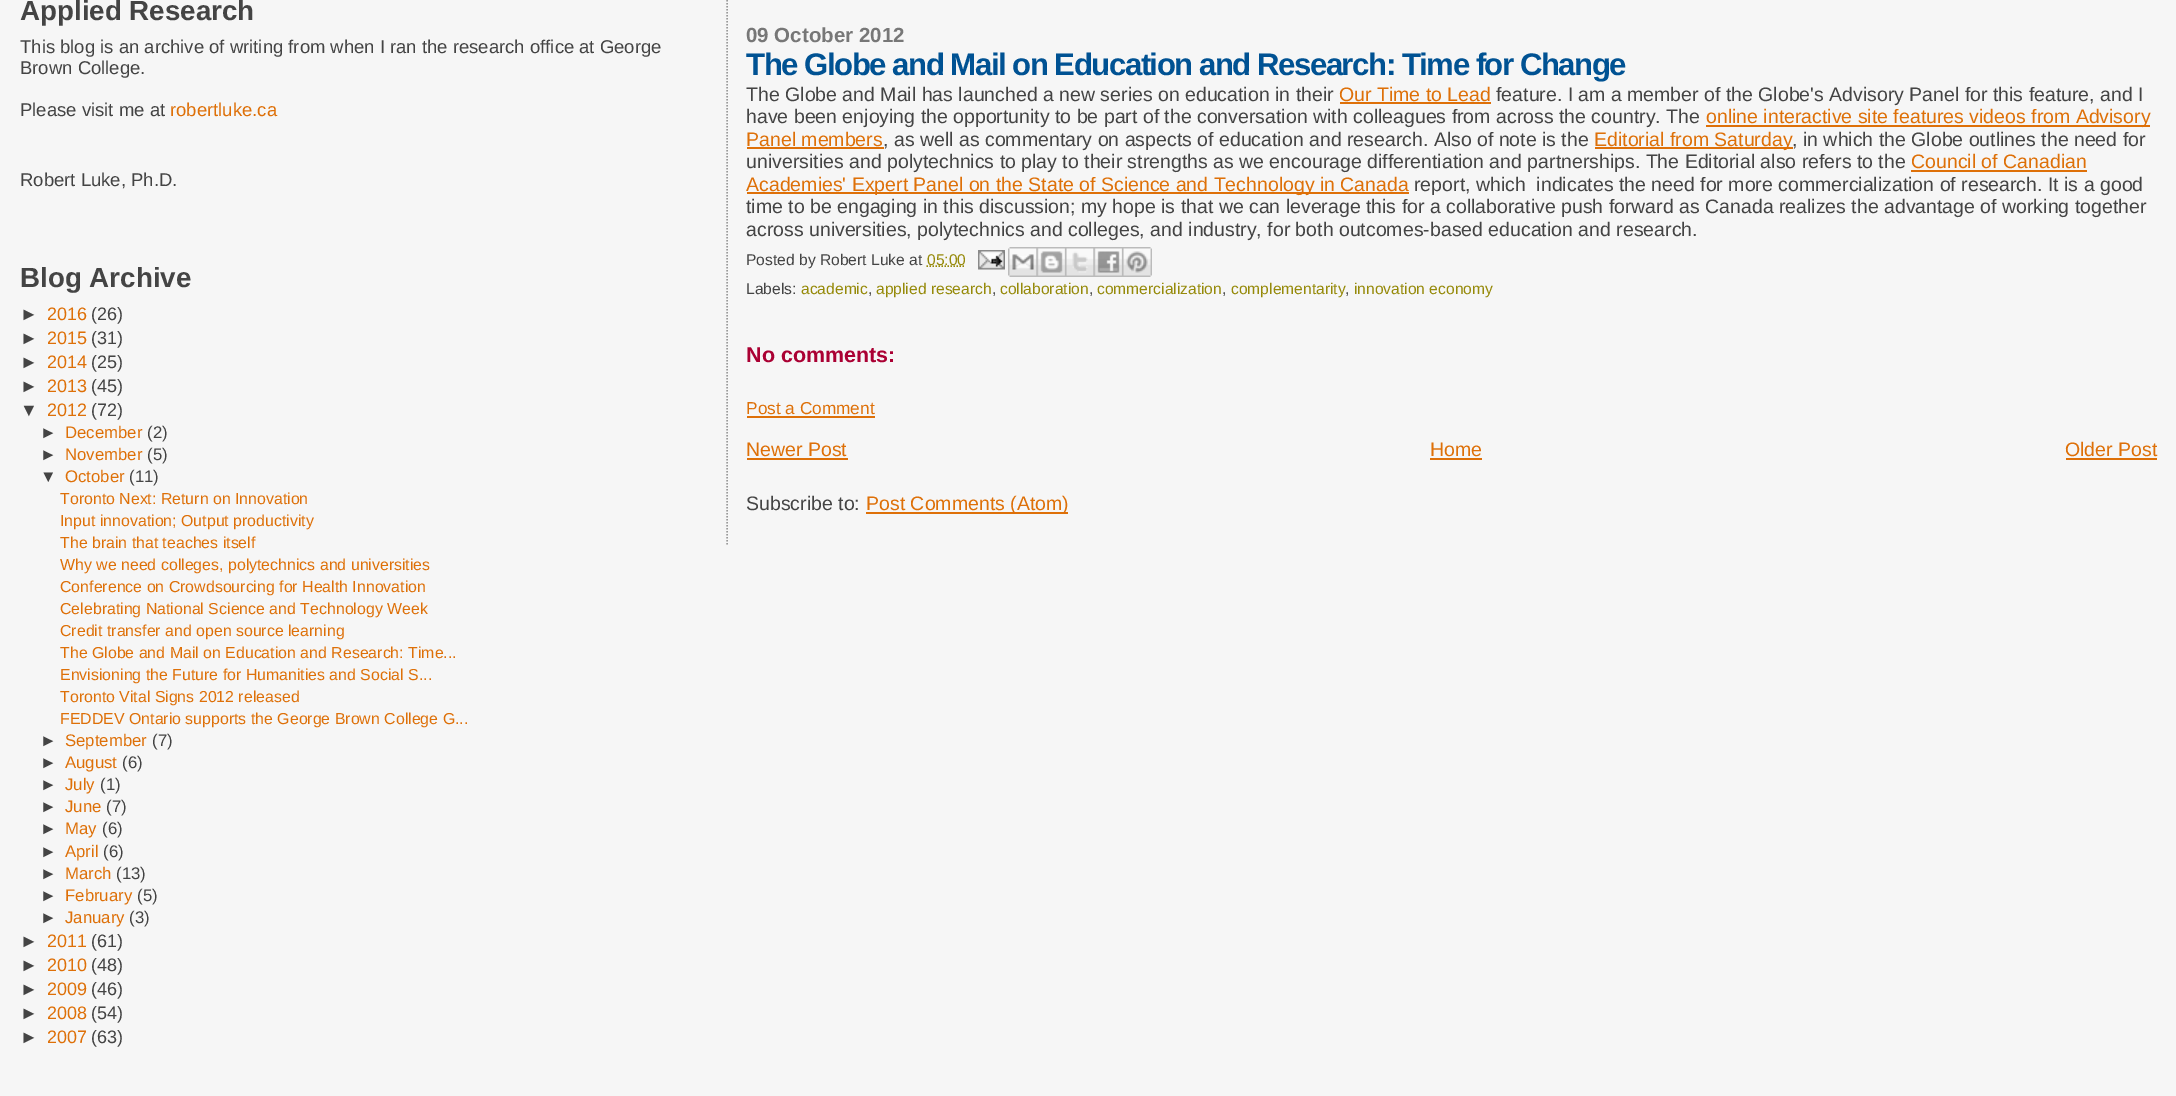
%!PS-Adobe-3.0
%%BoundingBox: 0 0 2176 1096
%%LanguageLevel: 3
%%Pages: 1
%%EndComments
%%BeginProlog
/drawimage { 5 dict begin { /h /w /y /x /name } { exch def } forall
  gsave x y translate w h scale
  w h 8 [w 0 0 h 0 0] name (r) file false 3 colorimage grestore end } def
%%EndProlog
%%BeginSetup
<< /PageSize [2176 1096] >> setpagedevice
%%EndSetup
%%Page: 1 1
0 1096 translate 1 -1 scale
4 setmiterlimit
0.965 setgray
0 0 2176 1096 rectfill
0.6 setgray
1.5 setlinewidth
[1.5 1.5] 0 setdash
newpath 727 -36 moveto 727 544.5 lineto stroke
0.871 0.439 0.031 setrgbcolor
1340 102 151 2 rectfill
1706 125 444 2 rectfill
747 147 137 2 rectfill
1595 147 198 2 rectfill
1911 170 176 2 rectfill
747 192 662 2 rectfill
0.588 0.541 0.039 setrgbcolor
newpath 926.5 266 moveto 965.5 266 lineto stroke
(images/1.raw) 978 250 27 20 drawimage
(images/2.raw) 1008 247 29 30 drawimage
(images/3.raw) 1036 247 29 30 drawimage
(images/4.raw) 1065 247 29 30 drawimage
(images/5.raw) 1093 247 29 30 drawimage
(images/6.raw) 1122 247 30 30 drawimage
0.871 0.439 0.031 setrgbcolor
747 416 128 2 rectfill
747 458 101 2 rectfill
1430 458 52 2 rectfill
2066 458 91 2 rectfill
866 512 202 2 rectfill
/LiberationSans-Bold [27.75 0 0 -27.75 0 0] selectfont
0.267 setgray
20 20 moveto (Applied Research) show
/LiberationSans-Regular [18.5 0 0 -18.5 0 0] selectfont
20 53 moveto (This blog is an archive of writing from when I ran the research office at George) show
20 74 moveto (Brown College.) show
20 116 moveto (Please visit me at) show
0.871 0.439 0.031 setrgbcolor
170 116 moveto (robertluke.ca) show
0.267 setgray
20 186 moveto (Robert Luke, Ph.D.) show
/LiberationSans-Bold [27.75 0 0 -27.75 0 0] selectfont
20 287 moveto (Blog Archive) show
/LiberationSans-Regular [18 0 0 -18 0 0] selectfont
20 320 moveto (►) show
0.871 0.439 0.031 setrgbcolor
47 320 moveto (2016) show
0.267 setgray
91 320 moveto (\(26\)) show
20 344 moveto (►) show
0.871 0.439 0.031 setrgbcolor
47 344 moveto (2015) show
0.267 setgray
91 344 moveto (\(31\)) show
20 368 moveto (►) show
0.871 0.439 0.031 setrgbcolor
47 368 moveto (2014) show
0.267 setgray
91 368 moveto (\(25\)) show
20 392 moveto (►) show
0.871 0.439 0.031 setrgbcolor
47 392 moveto (2013) show
0.267 setgray
91 392 moveto (\(45\)) show
20 416 moveto (▼) show
0.871 0.439 0.031 setrgbcolor
47 416 moveto (2012) show
0.267 setgray
91 416 moveto (\(72\)) show
/LiberationSans-Regular [16.75 0 0 -16.75 0 0] selectfont
40 438 moveto (►) show
0.871 0.439 0.031 setrgbcolor
65 438 moveto (December) show
0.267 setgray
147 438 moveto (\(2\)) show
40 460 moveto (►) show
0.871 0.439 0.031 setrgbcolor
65 460 moveto (November) show
0.267 setgray
147 460 moveto (\(5\)) show
40 482 moveto (▼) show
0.871 0.439 0.031 setrgbcolor
65 482 moveto (October) show
0.267 setgray
129 482 moveto (\(11\)) show
/LiberationSans-Regular [15.9 0 0 -15.9 0 0] selectfont
0.871 0.439 0.031 setrgbcolor
60 504 moveto (Toronto Next: Return on Innovation) show
60 526 moveto (Input innovation; Output productivity) show
60 548 moveto (The brain that teaches itself) show
60 570 moveto (Why we need colleges, polytechnics and universities) show
60 592 moveto (Conference on Crowdsourcing for Health Innovation) show
60 614 moveto (Celebrating National Science and Technology Week) show
60 636 moveto (Credit transfer and open source learning) show
60 658 moveto (The Globe and Mail on Education and Research: Time...) show
60 680 moveto (Envisioning the Future for Humanities and Social S...) show
60 702 moveto (Toronto Vital Signs 2012 released) show
60 724 moveto (FEDDEV Ontario supports the George Brown College G...) show
/LiberationSans-Regular [16.75 0 0 -16.75 0 0] selectfont
0.267 setgray
40 746 moveto (►) show
0.871 0.439 0.031 setrgbcolor
65 746 moveto (September) show
0.267 setgray
152 746 moveto (\(7\)) show
40 768 moveto (►) show
0.871 0.439 0.031 setrgbcolor
65 768 moveto (August) show
0.267 setgray
122 768 moveto (\(6\)) show
40 790 moveto (►) show
0.871 0.439 0.031 setrgbcolor
65 790 moveto (July) show
0.267 setgray
100 790 moveto (\(1\)) show
40 812 moveto (►) show
0.871 0.439 0.031 setrgbcolor
65 812 moveto (June) show
0.267 setgray
106 812 moveto (\(7\)) show
40 834 moveto (►) show
0.871 0.439 0.031 setrgbcolor
65 834 moveto (May) show
0.267 setgray
102 834 moveto (\(6\)) show
40 857 moveto (►) show
0.871 0.439 0.031 setrgbcolor
65 857 moveto (April) show
0.267 setgray
103 857 moveto (\(6\)) show
40 879 moveto (►) show
0.871 0.439 0.031 setrgbcolor
65 879 moveto (March) show
0.267 setgray
116 879 moveto (\(13\)) show
40 901 moveto (►) show
0.871 0.439 0.031 setrgbcolor
65 901 moveto (February) show
0.267 setgray
137 901 moveto (\(5\)) show
40 923 moveto (►) show
0.871 0.439 0.031 setrgbcolor
65 923 moveto (January) show
0.267 setgray
129 923 moveto (\(3\)) show
/LiberationSans-Regular [18 0 0 -18 0 0] selectfont
20 947 moveto (►) show
0.871 0.439 0.031 setrgbcolor
47 947 moveto (2011) show
0.267 setgray
91 947 moveto (\(61\)) show
20 971 moveto (►) show
0.871 0.439 0.031 setrgbcolor
47 971 moveto (2010) show
0.267 setgray
91 971 moveto (\(48\)) show
20 995 moveto (►) show
0.871 0.439 0.031 setrgbcolor
47 995 moveto (2009) show
0.267 setgray
91 995 moveto (\(46\)) show
20 1019 moveto (►) show
0.871 0.439 0.031 setrgbcolor
47 1019 moveto (2008) show
0.267 setgray
91 1019 moveto (\(54\)) show
20 1043 moveto (►) show
0.871 0.439 0.031 setrgbcolor
47 1043 moveto (2007) show
0.267 setgray
91 1043 moveto (\(63\)) show
/LiberationSans-Bold [20.5 0 0 -20.5 0 0] selectfont
0.467 setgray
746 42 moveto (09 October 2012) show
/LiberationSans-Bold [31.2 0 0 -31.2 0 0] selectfont
0 0.322 0.576 setrgbcolor
746 75 moveto -1.5 0 (The Globe and Mail on Education and Research: Time for Change) ashow
/LiberationSans-Regular [19.5 0 0 -19.5 0 0] selectfont
0.267 setgray
746 101 moveto (The Globe and Mail has launched a new series on education in their) show
0.871 0.439 0.031 setrgbcolor
1339 101 moveto (Our Time to Lead) show
0.267 setgray
1496 101 moveto (feature. I am a member of the Globe's Advisory Panel for this feature, and I) show
746 123 moveto (have been enjoying the opportunity to be part of the conversation with colleagues from across the country. The) show
0.871 0.439 0.031 setrgbcolor
1706 123 moveto (online interactive site features videos from Advisory) show
746 146 moveto (Panel members) show
0.267 setgray
883 146 moveto (, as well as commentary on aspects of education and research. Also of note is the) show
0.871 0.439 0.031 setrgbcolor
1594 146 moveto (Editorial from Saturday) show
0.267 setgray
1792 146 moveto (, in which the Globe outlines the need for) show
746 168 moveto (universities and polytechnics to play to their strengths as we encourage differentiation and partnerships. The Editorial also refers to the) show
0.871 0.439 0.031 setrgbcolor
1911 168 moveto (Council of Canadian) show
746 191 moveto (Academies' Expert Panel on the State of Science and Technology in Canada) show
0.267 setgray
1414 191 moveto (report, which  indicates the need for more commercialization of research. It is a good) show
746 213 moveto (time to be engaging in this discussion; my hope is that we can leverage this for a collaborative push forward as Canada realizes the advantage of working together) show
746 236 moveto (across universities, polytechnics and colleges, and industry, for both outcomes-based education and research.) show
/LiberationSans-Regular [15.6 0 0 -15.6 0 0] selectfont
746 265 moveto (Posted by Robert Luke at) show
0.588 0.541 0.039 setrgbcolor
927 265 moveto (05:00) show
0.267 setgray
746 294 moveto (Labels:) show
0.588 0.541 0.039 setrgbcolor
801 294 moveto (academic) show
0.267 setgray
868 294 moveto (,) show
0.588 0.541 0.039 setrgbcolor
876 294 moveto (applied research) show
0.267 setgray
992 294 moveto (,) show
0.588 0.541 0.039 setrgbcolor
1000 294 moveto (collaboration) show
0.267 setgray
1089 294 moveto (,) show
0.588 0.541 0.039 setrgbcolor
1097 294 moveto (commercialization) show
0.267 setgray
1222 294 moveto (,) show
0.588 0.541 0.039 setrgbcolor
1231 294 moveto (complementarity) show
0.267 setgray
1345 294 moveto (,) show
0.588 0.541 0.039 setrgbcolor
1354 294 moveto (innovation economy) show
/LiberationSans-Bold [21.5 0 0 -21.5 0 0] selectfont
0.667 0 0.2 setrgbcolor
746 362 moveto (No comments:) show
/LiberationSans-Regular [17.25 0 0 -17.25 0 0] selectfont
0.871 0.439 0.031 setrgbcolor
746 414 moveto (Post a Comment) show
/LiberationSans-Regular [19.5 0 0 -19.5 0 0] selectfont
746 456 moveto (Newer Post) show
1430 456 moveto (Home) show
2065 456 moveto (Older Post) show
0.267 setgray
746 510 moveto (Subscribe to:) show
0.871 0.439 0.031 setrgbcolor
866 510 moveto (Post Comments \(Atom\)) show
showpage
%%EOF
